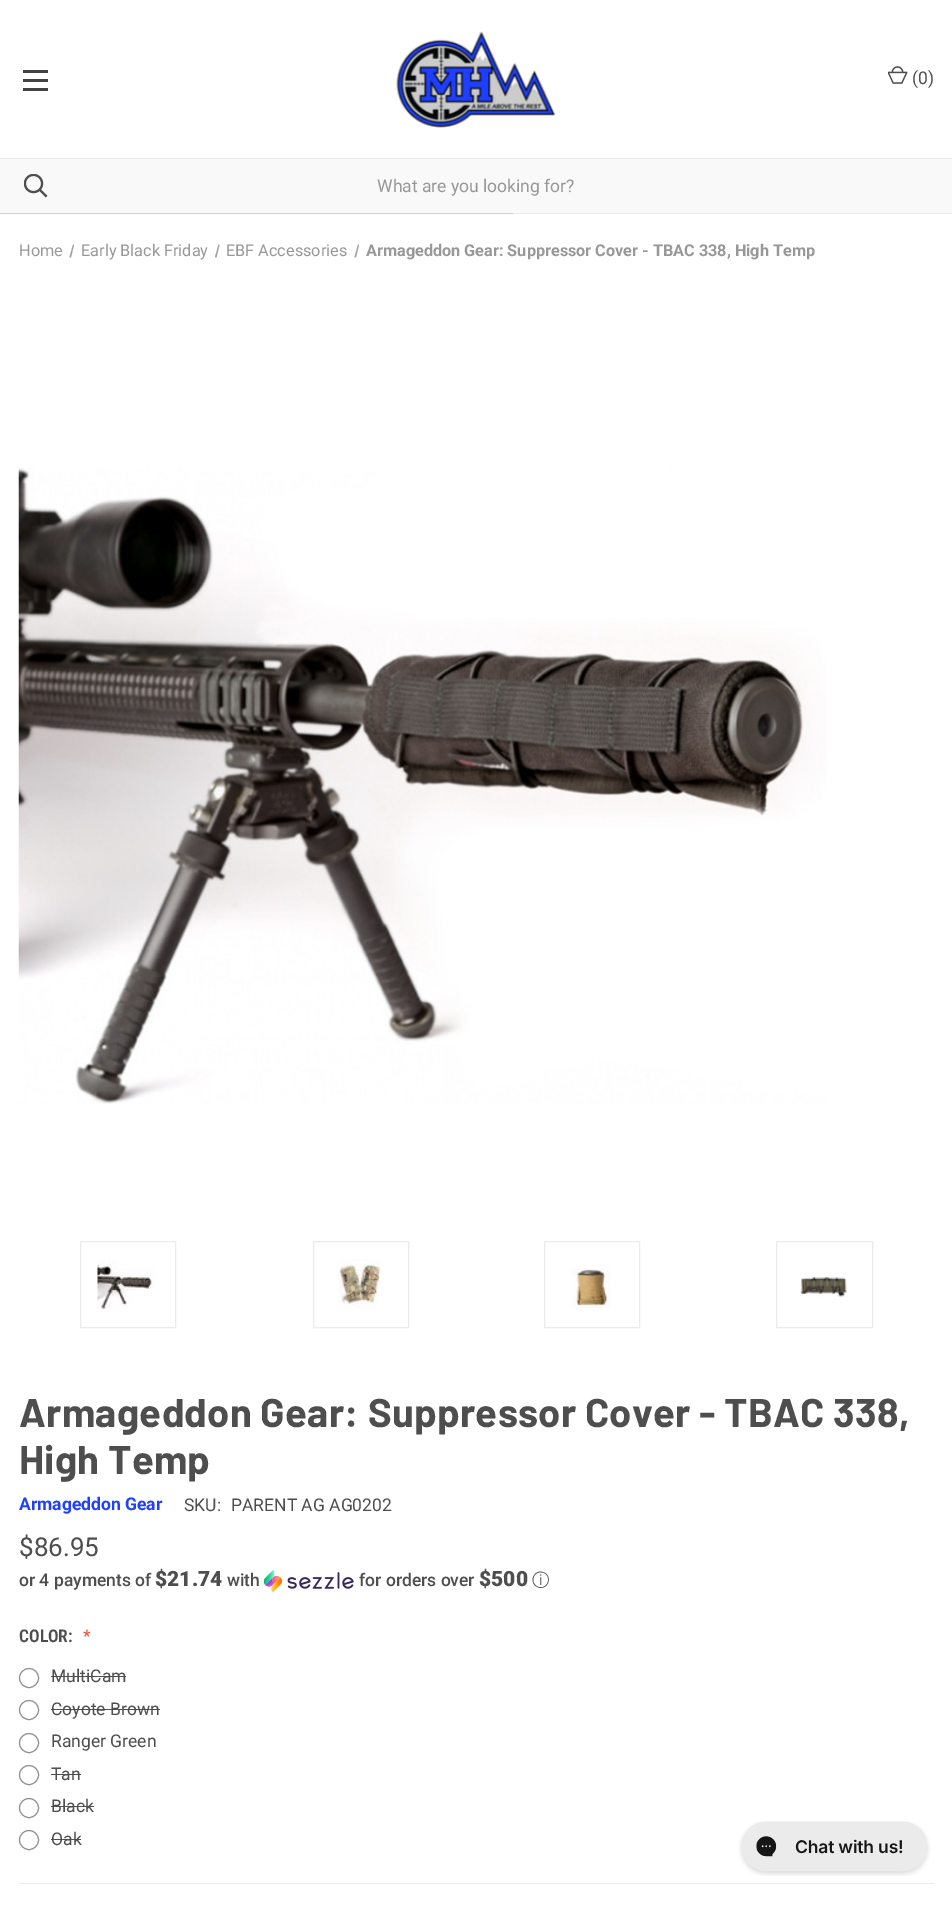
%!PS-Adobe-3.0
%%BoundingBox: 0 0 952 1905
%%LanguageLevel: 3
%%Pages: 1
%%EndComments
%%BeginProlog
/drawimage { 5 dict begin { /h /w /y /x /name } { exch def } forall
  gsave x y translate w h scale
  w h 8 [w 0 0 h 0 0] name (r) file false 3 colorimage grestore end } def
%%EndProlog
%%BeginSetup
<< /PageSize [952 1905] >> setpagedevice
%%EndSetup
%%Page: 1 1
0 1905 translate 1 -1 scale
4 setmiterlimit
1 setgray
0 0 952 1905 rectfill
0.922 setgray
513 213 439 1 rectfill
0.259 setgray
23 79 25 3 rectfill
23 70 25 3 rectfill
23 88 25 3 rectfill
(images/1.raw) 396 31 160 97 drawimage
(images/2.raw) 888 66 20 18 drawimage
0.976 setgray
0 159 952 54 rectfill
(images/3.raw) 24 174 24 24 drawimage
0.922 setgray
0 158 952 1 rectfill
0.824 setgray
0 213 513 1 rectfill
0.639 setgray
newpath 73 244.5 moveto 74 245 lineto 71 257.5 lineto 69.5 257 lineto closepath fill
newpath 218.5 244.5 moveto 219.5 245 lineto 216.5 257.5 lineto 215 257 lineto closepath fill
newpath 358 244.5 moveto 359 245 lineto 356 257.5 lineto 354.5 257 lineto closepath fill
(images/4.raw) 18 467 809 637 drawimage
0.922 setgray
80.5 1241.5 95 86 rectstroke
(images/5.raw) 97 1259 59 50 drawimage
313.5 1241.5 95 86 rectstroke
(images/6.raw) 338 1259 44 50 drawimage
544.5 1241.5 95 86 rectstroke
(images/7.raw) 571 1269 40 40 drawimage
776.5 1241.5 96 86 rectstroke
(images/8.raw) 800 1277 47 20 drawimage
(images/9.raw) 264 1570 90 23 drawimage
19 1883 915 1 rectfill
0.561 setgray
newpath 29 1678 9.5 0 360 arc closepath stroke
0.306 setgray
51 1676 75 1 rectfill
0.561 setgray
newpath 29 1710 9.5 0 360 arc closepath stroke
0.306 setgray
51 1709 109 1 rectfill
0.561 setgray
newpath 29 1743 9.5 0 360 arc closepath stroke
newpath 29 1775 9.5 0 360 arc closepath stroke
0.306 setgray
51 1774 30 1 rectfill
0.561 setgray
newpath 29 1808 9.5 0 360 arc closepath stroke
0.306 setgray
51 1806 43 1 rectfill
0.561 setgray
newpath 29 1840 9.5 0 360 arc closepath stroke
0.306 setgray
51 1839 30 1 rectfill
(images/10.raw) 739 1821 191 55 drawimage
/Roboto-Regular [17.5 0 0 -17.5 0 0] selectfont
912 84 moveto (\(0\)) show
0.596 setgray
377 192 moveto (What are you looking for?) show
/Roboto-Regular [16.25 0 0 -16.25 0 0] selectfont
19 256 moveto (Home) show
81 256 moveto (Early Black Friday) show
226 256 moveto (EBF Accessories) show
/Roboto-Bold [16.25 0 0 -16.25 0 0] selectfont
366 256 moveto (Armageddon Gear: Suppressor Cover - TBAC 338, High Temp) show
/Barlow-Bold [40 0 0 -40 0 0] selectfont
0.306 setgray
19 1427 moveto 0.3 0 (Armageddon Gear: Suppressor Cover - TBAC 338,) ashow
19 1474 moveto 0.3 0 (High Temp) ashow
/Roboto-Bold [17.5 0 0 -17.5 0 0] selectfont
0.122 0.251 1 setrgbcolor
19 1510 moveto (Armageddon Gear) show
/Roboto-Regular [17.5 0 0 -17.5 0 0] selectfont
0.306 setgray
184 1511 moveto (SKU:) show
231 1511 moveto (PARENT AG AG0202) show
/Roboto-Regular [26 0 0 -26 0 0] selectfont
19 1556 moveto ($86.95) show
/Roboto-Medium [17.5 0 0 -17.5 0 0] selectfont
19 1586 moveto (or 4 payments of) show
/Roboto-Black [21 0 0 -21 0 0] selectfont
155 1586 moveto ($21.74) show
/Roboto-Medium [17.5 0 0 -17.5 0 0] selectfont
227 1586 moveto (with) show
359 1586 moveto (for orders over) show
/Roboto-Black [21 0 0 -21 0 0] selectfont
479 1586 moveto ($500) show
/WenQuanYiZenHei-Medium [17.5 0 0 -17.5 0 0] selectfont
532 1586 moveto (ⓘ) show
/RobotoCondensed-SemiBold [17.5 0 0 -17.5 0 0] selectfont
19 1642 moveto (COLOR:) show
/RobotoCondensed-Regular [17.5 0 0 -17.5 0 0] selectfont
0.961 0.29 0.227 setrgbcolor
83 1642 moveto (*) show
/Roboto-Regular [17.5 0 0 -17.5 0 0] selectfont
0.306 setgray
51 1682 moveto (MultiCam) show
51 1715 moveto (Coyote Brown) show
51 1747 moveto (Ranger Green) show
51 1780 moveto (Tan) show
51 1812 moveto (Black) show
51 1845 moveto (Oak) show
showpage
%%EOF
